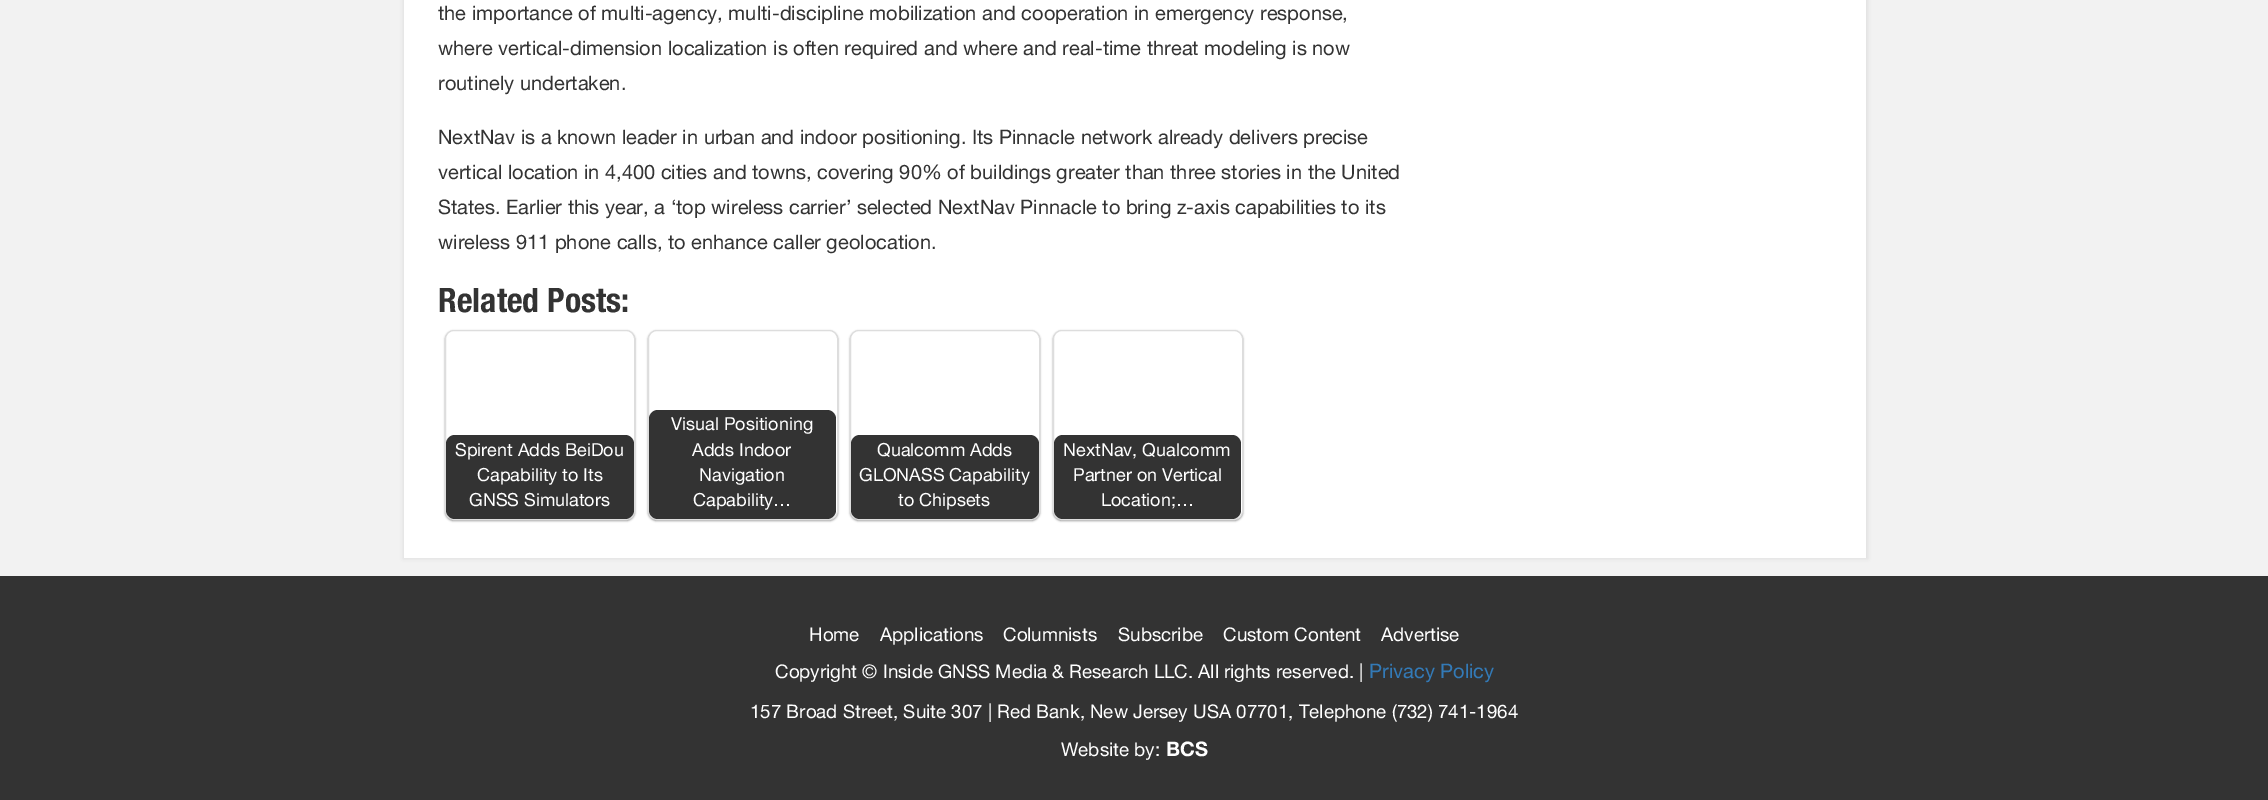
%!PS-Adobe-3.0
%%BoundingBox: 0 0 2268 800
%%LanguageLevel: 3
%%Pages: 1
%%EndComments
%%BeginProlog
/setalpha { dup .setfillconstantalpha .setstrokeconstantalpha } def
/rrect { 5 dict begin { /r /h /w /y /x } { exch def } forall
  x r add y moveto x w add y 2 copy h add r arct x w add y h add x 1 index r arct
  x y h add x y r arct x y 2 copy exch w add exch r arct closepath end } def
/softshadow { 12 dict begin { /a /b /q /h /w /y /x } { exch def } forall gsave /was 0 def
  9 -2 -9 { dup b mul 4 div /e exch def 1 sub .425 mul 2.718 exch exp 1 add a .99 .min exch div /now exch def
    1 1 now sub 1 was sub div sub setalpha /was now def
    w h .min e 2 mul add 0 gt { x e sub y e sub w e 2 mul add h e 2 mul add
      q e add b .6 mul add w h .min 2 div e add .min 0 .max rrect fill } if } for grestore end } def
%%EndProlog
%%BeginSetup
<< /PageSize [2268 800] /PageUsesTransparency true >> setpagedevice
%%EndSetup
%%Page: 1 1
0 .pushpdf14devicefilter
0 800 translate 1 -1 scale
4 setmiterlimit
0.949 setgray
0 0 2268 800 rectfill
0.878 setgray
403 -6 1465 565 0 2 1 softshadow
1 setgray
404 0 1462 558 rectfill
gsave
newpath 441 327 moveto 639 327 lineto 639 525 lineto 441 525 lineto closepath 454 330 moveto 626 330 lineto 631 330 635 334 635 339 curveto 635 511 lineto 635 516 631 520 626 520 curveto 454 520 lineto 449 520 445 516 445 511 curveto 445 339 lineto 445 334 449 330 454 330 curveto closepath eoclip newpath
0 setgray
445 331 190 190 9 1 0.4 softshadow
grestore
0.867 setgray
445.5 330.5 189 189 8.5 rrect stroke
gsave
446 331 188 188 8 rrect clip newpath
0.8 setalpha
0 setgray
446 435 188 84 9 rrect fill
grestore
gsave
newpath 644 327 moveto 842 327 lineto 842 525 lineto 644 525 lineto closepath 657 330 moveto 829 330 lineto 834 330 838 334 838 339 curveto 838 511 lineto 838 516 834 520 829 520 curveto 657 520 lineto 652 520 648 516 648 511 curveto 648 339 lineto 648 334 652 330 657 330 curveto closepath eoclip newpath
0 setgray
648 331 190 190 9 1 0.4 softshadow
grestore
648.5 330.5 189 189 8.5 rrect stroke
gsave
649 331 187 188 8 rrect clip newpath
0.8 setalpha
0 setgray
649 410 187 109 9 rrect fill
grestore
gsave
newpath 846 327 moveto 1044 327 lineto 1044 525 lineto 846 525 lineto closepath 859 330 moveto 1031 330 lineto 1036 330 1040 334 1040 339 curveto 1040 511 lineto 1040 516 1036 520 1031 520 curveto 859 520 lineto 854 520 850 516 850 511 curveto 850 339 lineto 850 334 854 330 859 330 curveto closepath eoclip newpath
0 setgray
850 331 190 190 9 1 0.4 softshadow
grestore
850.5 330.5 189 189 8.5 rrect stroke
gsave
851 331 188 188 8 rrect clip newpath
0.8 setalpha
0 setgray
851 435 188 84 9 rrect fill
grestore
gsave
newpath 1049 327 moveto 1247 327 lineto 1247 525 lineto 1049 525 lineto closepath 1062 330 moveto 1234 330 lineto 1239 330 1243 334 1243 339 curveto 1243 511 lineto 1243 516 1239 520 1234 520 curveto 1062 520 lineto 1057 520 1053 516 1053 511 curveto 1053 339 lineto 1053 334 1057 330 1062 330 curveto closepath eoclip newpath
0 setgray
1053 331 190 190 9 1 0.4 softshadow
grestore
1053.5 330.5 189 189 8.5 rrect stroke
gsave
1054 331 187 188 8 rrect clip newpath
0.8 setalpha
0 setgray
1054 435 187 84 9 rrect fill
grestore
0.2 setgray
0 576 2268 224 rectfill
/HelveticaNeue-Regular [20 0 0 -20 0 0] selectfont
438 20 moveto (the importance of multi-agency, multi-discipline mobilization and cooperation in emergency response,) show
438 55 moveto (where vertical-dimension localization is often required and where and real-time threat modeling is now) show
438 90 moveto (routinely undertaken.) show
438 144 moveto (NextNav is a known leader in urban and indoor positioning. Its Pinnacle network already delivers precise) show
438 179 moveto (vertical location in 4,400 cities and towns, covering 90% of buildings greater than three stories in the United) show
438 214 moveto (States. Earlier this year, a ‘top wireless carrier’ selected NextNav Pinnacle to bring z-axis capabilities to its) show
438 249 moveto (wireless 911 phone calls, to enhance caller geolocation.) show
/HelveticaNeue-Bold [33.75 0 0 -33.75 0 0] selectfont
438 312 moveto (Related Posts:) show
/HelveticaNeue-Regular [18 0 0 -18 0 0] selectfont
1 setgray
455 456 moveto (Spirent Adds BeiDou) show
477 481 moveto (Capability to Its) show
469 506 moveto (GNSS Simulators) show
671 430 moveto (Visual Positioning) show
692 456 moveto (Adds Indoor) show
699 481 moveto (Navigation) show
693 506 moveto (Capability…) show
877 456 moveto (Qualcomm Adds) show
859 481 moveto (GLONASS Capability) show
898 506 moveto (to Chipsets) show
1063 456 moveto (NextNav, Qualcomm) show
1073 481 moveto (Partner on Vertical) show
1101 506 moveto (Location;…) show
/HelveticaNeue-Regular [18.75 0 0 -18.75 0 0] selectfont
809 641 moveto (Home) show
880 641 moveto (Applications) show
1003 641 moveto (Columnists) show
1118 641 moveto (Subscribe) show
1223 641 moveto (Custom Content) show
1381 641 moveto (Advertise) show
775 678 moveto (Copyright © Inside GNSS Media & Research LLC. All rights reserved. |) show
/HelveticaNeue-Regular [20 0 0 -20 0 0] selectfont
0.2 0.478 0.718 setrgbcolor
1369 678 moveto (Privacy Policy) show
/HelveticaNeue-Regular [18.75 0 0 -18.75 0 0] selectfont
1 setgray
750 718 moveto (157 Broad Street, Suite 307 | Red Bank, New Jersey USA 07701, Telephone \(732\) 741-1964) show
1061 756 moveto (Website by:) show
/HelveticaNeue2-Bold [20 0 0 -20 0 0] selectfont
1166 756 moveto (BCS) show
.poppdf14devicefilter showpage
%%EOF
